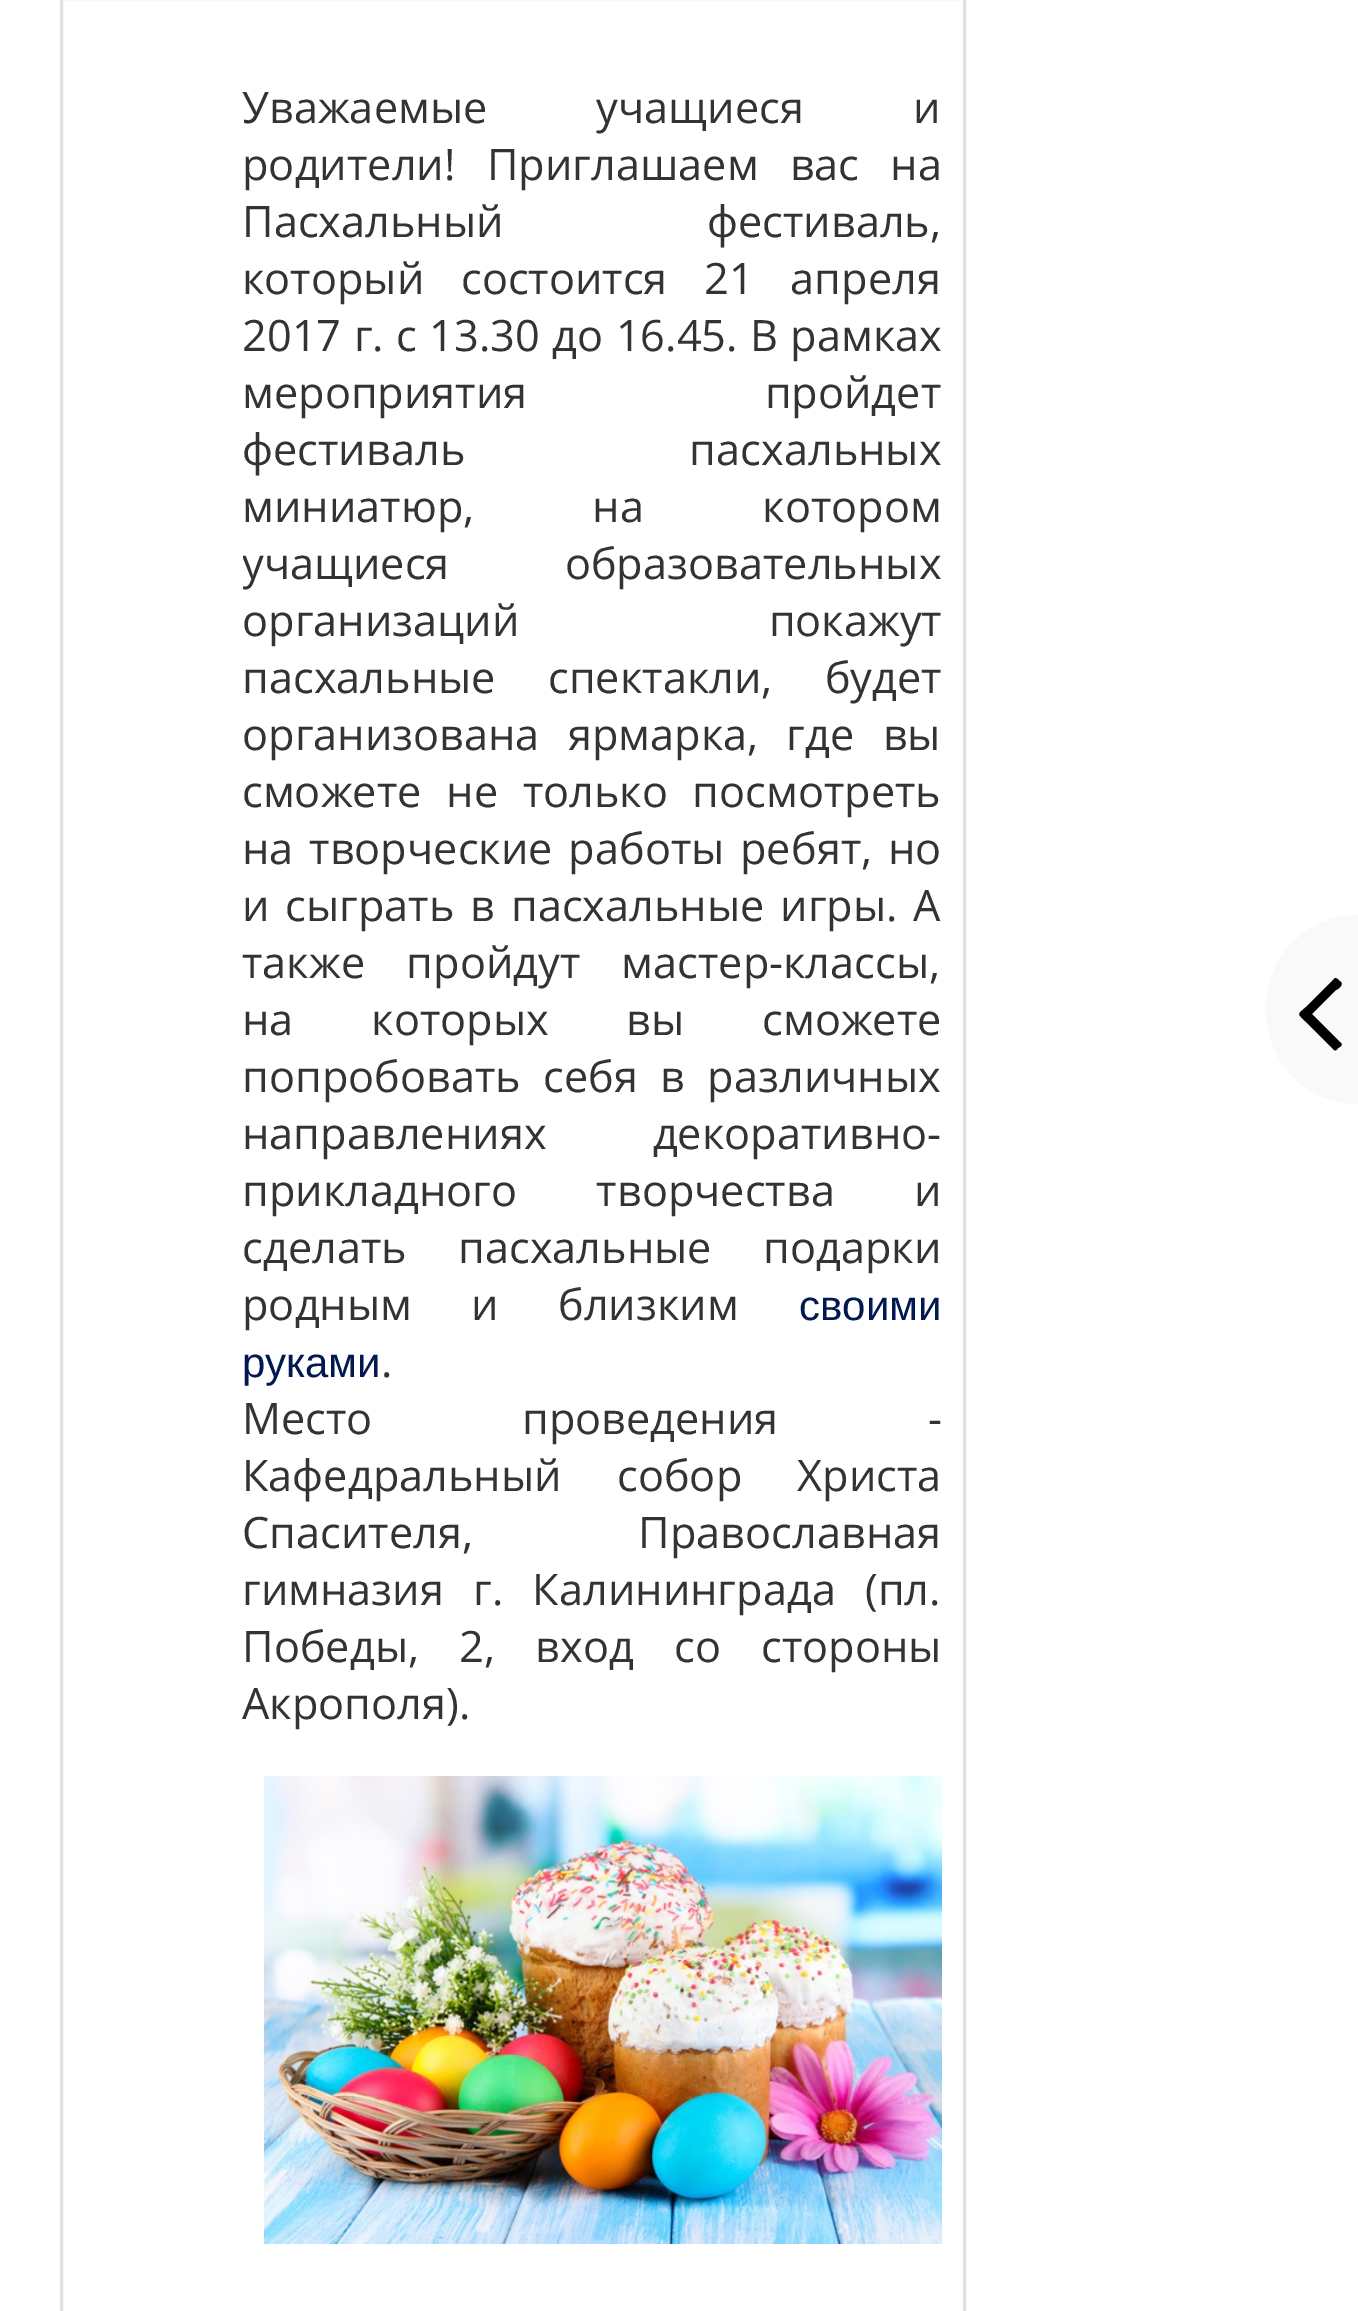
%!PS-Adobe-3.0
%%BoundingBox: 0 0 1358 2311
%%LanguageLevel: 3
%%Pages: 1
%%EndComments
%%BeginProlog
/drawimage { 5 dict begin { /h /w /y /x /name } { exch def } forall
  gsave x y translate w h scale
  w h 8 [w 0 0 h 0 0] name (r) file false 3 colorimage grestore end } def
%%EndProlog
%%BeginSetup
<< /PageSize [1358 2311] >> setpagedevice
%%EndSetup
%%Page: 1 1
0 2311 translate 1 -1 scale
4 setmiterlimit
1 setgray
0 0 1358 2311 rectfill
0.871 0.886 0.902 setrgbcolor
3 setlinewidth
61.5 -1.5 903 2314 rectstroke
(images/1.raw) 264 1776 678 468 drawimage
0.976 setgray
newpath 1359 915 moveto 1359 1104 lineto 1307.5 1104 1266 1062.5 1266 1011 curveto 1266 1008 lineto 1266 956.5 1307.5 915 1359 915 curveto closepath fill
0 setgray
newpath 1341 982 moveto 1344 985 1337 990 1336 990 curveto 1312 1014 lineto 1341 1043 lineto 1343 1045 1340 1047 1338 1048 curveto 1337 1050 1335 1051 1334 1050 curveto 1306 1022 lineto 1297 1013 1297 1015 1306 1007 curveto 1334 979 lineto 1336 976 1339 981 1341 982 curveto closepath fill
/OpenSans-Regular [43.3 0 0 -43.3 0 0] selectfont
0.2 setgray
242 123 moveto 98 0 32 (Уважаемые учащиеся и) widthshow
242 180 moveto 20 0 32 (родители! Приглашаем вас на) widthshow
242 237 moveto 192 0 32 (Пасхальный фестиваль,) widthshow
242 294 moveto 25.5 0 32 (который состоится 21 апреля) widthshow
242 351 moveto 1.25 0 32 (2017 г. с 13.30 до 16.45. В рамках) widthshow
242 408 moveto 226 0 32 (мероприятия пройдет) widthshow
242 465 moveto 213 0 32 (фестиваль пасхальных) widthshow
242 522 moveto 107 0 32 (миниатюр, на котором) widthshow
gsave
243 78 699 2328 rectclip
242 579 moveto 104 0 32 (учащиеся образовательных) widthshow
grestore
242 636 moveto 238 0 32 (организаций покажут) widthshow
242 693 moveto 41 0 32 (пасхальные спектакли, будет) widthshow
242 750 moveto 17 0 32 (организована ярмарка, где вы) widthshow
242 807 moveto 13.5 0 32 (сможете не только посмотреть) widthshow
242 864 moveto 4.5 0 32 (на творческие работы ребят, но) widthshow
242 921 moveto 4.5 0 32 (и сыграть в пасхальные игры. А) widthshow
242 978 moveto 30 0 32 (также пройдут мастер-классы,) widthshow
242 1035 moveto 66.5 0 32 (на которых вы сможете) widthshow
242 1092 moveto 11 0 32 (попробовать себя в различных) widthshow
242 1149 moveto 95 0 32 (направлениях декоративно-) widthshow
242 1206 moveto 68 0 32 (прикладного творчества и) widthshow
242 1263 moveto 40 0 32 (сделать пасхальные подарки) widthshow
242 1320 moveto 48 0 32 (родным и близким) widthshow
/LiberationSans-Regular [42 0 0 -42 0 0] selectfont
0.004 0.098 0.314 setrgbcolor
799 1320 moveto (своими) show
242 1377 moveto (руками) show
/OpenSans-Regular [43.3 0 0 -43.3 0 0] selectfont
0.2 setgray
381 1377 moveto (.) show
242 1434 moveto 138 0 32 (Место проведения -) widthshow
242 1491 moveto 44 0 32 (Кафедральный собор Христа) widthshow
242 1548 moveto 154 0 32 (Спасителя, Православная) widthshow
242 1605 moveto 18 0 32 (гимназия г. Калининграда \(пл.) widthshow
242 1662 moveto 29 0 32 (Победы, 2, вход со стороны) widthshow
242 1719 moveto (Акрополя\).) show
showpage
%%EOF
